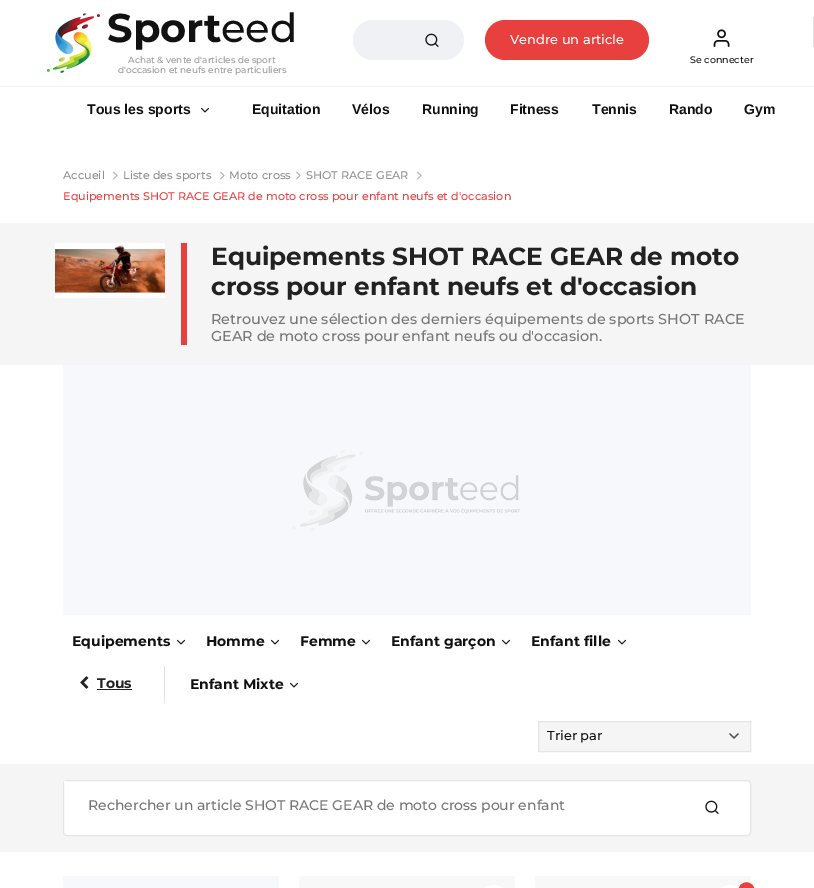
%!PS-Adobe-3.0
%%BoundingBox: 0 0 814 888
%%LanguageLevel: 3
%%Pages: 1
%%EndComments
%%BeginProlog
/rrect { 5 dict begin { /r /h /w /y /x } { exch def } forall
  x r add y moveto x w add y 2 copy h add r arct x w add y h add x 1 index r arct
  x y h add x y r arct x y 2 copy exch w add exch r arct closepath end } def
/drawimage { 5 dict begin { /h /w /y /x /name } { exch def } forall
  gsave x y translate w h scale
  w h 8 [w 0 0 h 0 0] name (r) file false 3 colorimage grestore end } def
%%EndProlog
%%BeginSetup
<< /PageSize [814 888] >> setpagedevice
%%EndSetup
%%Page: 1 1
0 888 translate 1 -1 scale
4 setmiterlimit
1 setgray
0 0 814 888 rectfill
(images/1.raw) 47 13 53 60 drawimage
0.941 0.945 0.957 setrgbcolor
newpath 373 20 moveto 401 20 lineto 401 60 lineto 373 60 lineto 362 60 353 51 353 40 curveto 353 29 362 20 373 20 curveto closepath fill
newpath 400 20 moveto 444 20 lineto 455 20 464 29 464 40 curveto 464 51 455 60 444 60 curveto 400 60 lineto closepath fill
(images/2.raw) 425 33 14 14 drawimage
0.91 0.247 0.247 setrgbcolor
485 20 164 40 20 rrect fill
0.882 0.886 0.894 setrgbcolor
813 17 1 30 rectfill
(images/3.raw) 713 29 17 18 drawimage
0.941 0.945 0.957 setrgbcolor
0 86 814 1 rectfill
(images/4.raw) 201 107 8 6 drawimage
(images/5.raw) 113 171 5 9 drawimage
(images/5.raw) 220 171 5 9 drawimage
(images/5.raw) 296 171 5 9 drawimage
(images/5.raw) 417 171 5 9 drawimage
0.961 setgray
0 223 814 142 rectfill
(images/6.raw) 55 243 110 55 drawimage
0.91 0.247 0.247 setrgbcolor
181 243 6 102 rectfill
0.965 0.973 0.988 setrgbcolor
63 365 688 250 rectfill
(images/7.raw) 292 450 229 81 drawimage
(images/4.raw) 177 639 8 6 drawimage
(images/4.raw) 271 639 8 6 drawimage
(images/4.raw) 362 639 8 6 drawimage
(images/4.raw) 502 639 8 6 drawimage
(images/4.raw) 618 639 8 6 drawimage
0.878 0.882 0.894 setrgbcolor
164 666 1 37 rectfill
(images/8.raw) 80 676 9 13 drawimage
0.133 setgray
97 689 35 1 rectfill
(images/4.raw) 290 682 8 6 drawimage
0.961 setgray
539 722 211 29 rectfill
0.322 setgray
1.3 setlinewidth
1 setlinecap
1 setlinejoin
newpath 730 734 moveto 734 738 lineto 738 734 lineto stroke
0.898 setgray
1 setlinewidth
0 setlinecap
0 setlinejoin
538.5 721.5 212 30 rectstroke
0.961 setgray
0 764 814 88 rectfill
1 setgray
63.5 780.5 687 55 3.5 rrect gsave fill grestore
0.898 setgray
stroke
1 setgray
64 781 3 3 rectfill
(images/9.raw) 705 800 14 14 drawimage
0.965 0.973 0.988 setrgbcolor
63 876 216 12 rectfill
0.973 setgray
299 876 216 12 rectfill
1 setgray
478 885 32 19 16 rrect fill
0.973 setgray
535 876 216 12 rectfill
1 setgray
714 885 32 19 16 rrect fill
0.91 0.247 0.247 setrgbcolor
737.5 881.5 18 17 9 rrect gsave fill grestore
1 setgray
stroke
/Montserrat-Bold [40 0 0 -40 0 0] selectfont
0.067 setgray
107 42 moveto (Sport) show
/Montserrat-Medium [40 0 0 -40 0 0] selectfont
221 42 moveto (eed) show
/Montserrat-Medium [9 0 0 -9 0 0] selectfont
0.6 setgray
128 63 moveto (Achat & vente d'articles de sport) show
118 73 moveto (d'occasion et neufs entre particuliers) show
/Montserrat-Medium [13 0 0 -13 0 0] selectfont
1 setgray
510 44 moveto (Vendre un article) show
/Montserrat-Medium [9.5 0 0 -9.5 0 0] selectfont
0.067 setgray
690 63 moveto (Se connecter) show
/LiberationSans-Bold [14 0 0 -14 0 0] selectfont
87 114 moveto (Tous les sports) show
252 114 moveto (Equitation) show
352 114 moveto (Vélos) show
422 114 moveto (Running) show
510 114 moveto (Fitness) show
592 114 moveto (Tennis) show
669 114 moveto (Rando) show
744 114 moveto (Gym) show
/Montserrat-Medium [11.2 0 0 -11.2 0 0] selectfont
0.565 setgray
63 179 moveto (Accueil) show
123 179 moveto (Liste des sports) show
229 179 moveto (Moto cross) show
306 179 moveto (SHOT RACE GEAR) show
0.91 0.247 0.247 setrgbcolor
63 200 moveto (Equipements SHOT RACE GEAR de moto cross pour enfant neufs et d'occasion) show
/Montserrat-Bold [24.8 0 0 -24.8 0 0] selectfont
0.133 setgray
211 265 moveto (Equipements SHOT RACE GEAR de moto) show
211 295 moveto (cross pour enfant neufs et d'occasion) show
/Montserrat-Medium [14.4 0 0 -14.4 0 0] selectfont
0.463 setgray
211 324 moveto (Retrouvez une sélection des derniers équipements de sports SHOT RACE) show
211 341 moveto (GEAR de moto cross pour enfant neufs ou d'occasion.) show
/Montserrat-Bold [14 0 0 -14 0 0] selectfont
0.067 setgray
72 646 moveto (Equipements) show
206 646 moveto (Homme) show
300 646 moveto (Femme) show
391 646 moveto (Enfant garçon) show
531 646 moveto (Enfant fille) show
0.133 setgray
97 688 moveto (Tous) show
0.067 setgray
190 689 moveto (Enfant Mixte) show
/Montserrat-Medium [13 0 0 -13 0 0] selectfont
547 740 moveto (Trier par) show
/Montserrat-Medium [14 0 0 -14 0 0] selectfont
0.463 setgray
88 810 moveto (Rechercher un article SHOT RACE GEAR de moto cross pour enfant) show
showpage
%%EOF
